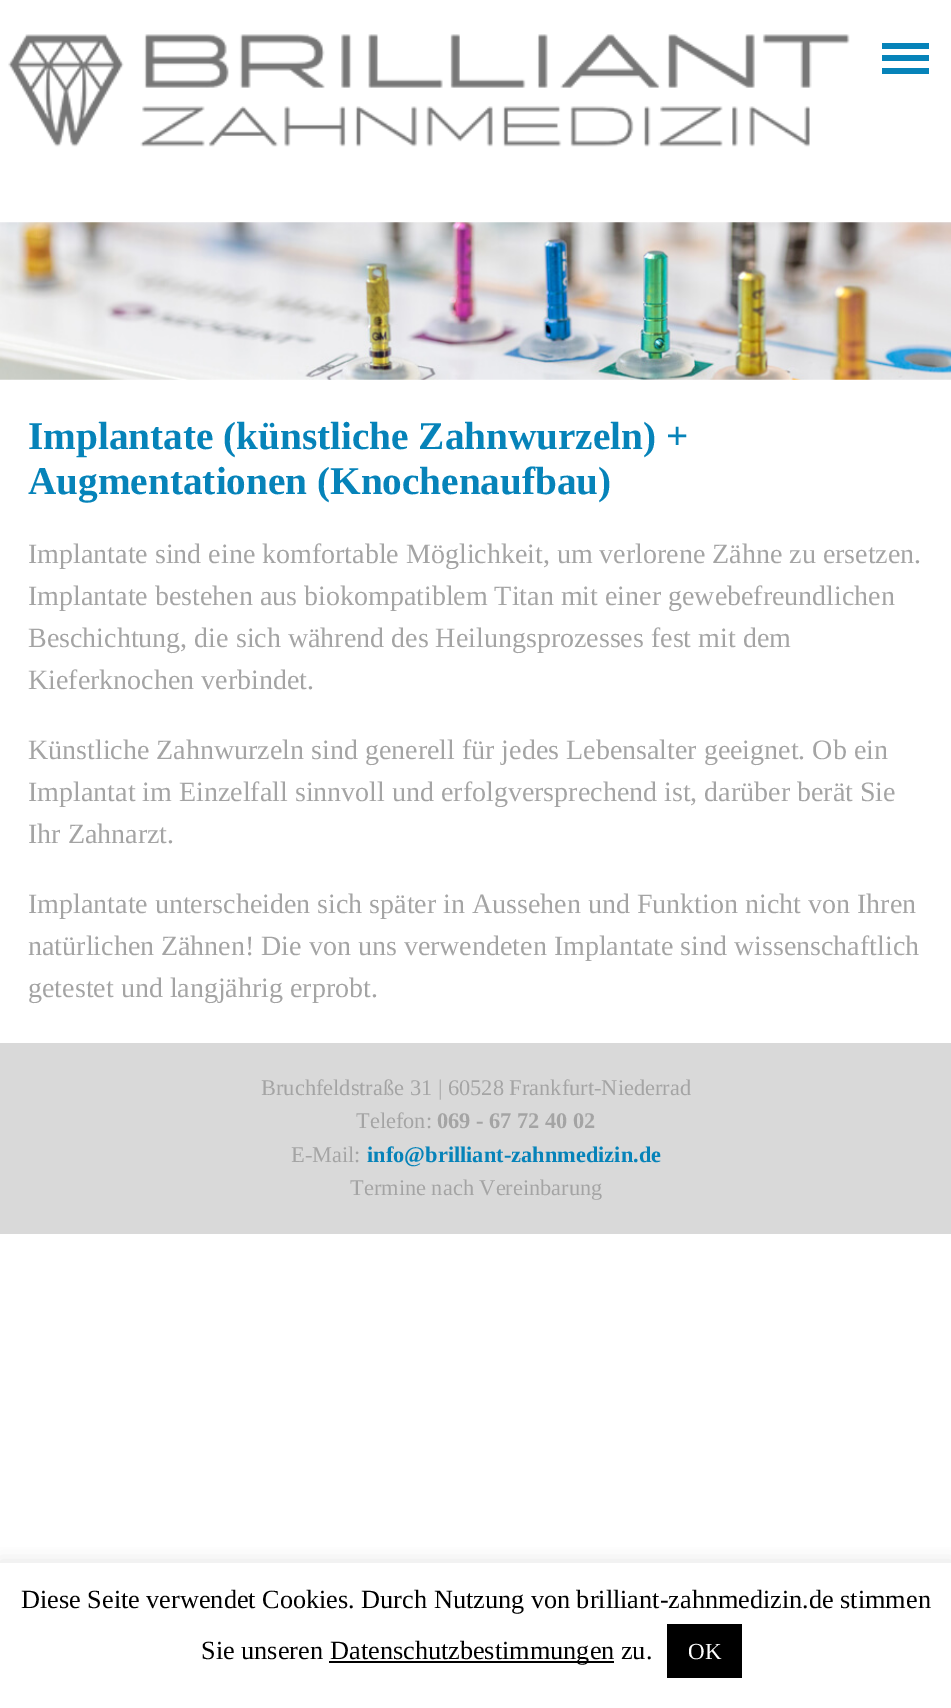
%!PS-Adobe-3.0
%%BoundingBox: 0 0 951 1708
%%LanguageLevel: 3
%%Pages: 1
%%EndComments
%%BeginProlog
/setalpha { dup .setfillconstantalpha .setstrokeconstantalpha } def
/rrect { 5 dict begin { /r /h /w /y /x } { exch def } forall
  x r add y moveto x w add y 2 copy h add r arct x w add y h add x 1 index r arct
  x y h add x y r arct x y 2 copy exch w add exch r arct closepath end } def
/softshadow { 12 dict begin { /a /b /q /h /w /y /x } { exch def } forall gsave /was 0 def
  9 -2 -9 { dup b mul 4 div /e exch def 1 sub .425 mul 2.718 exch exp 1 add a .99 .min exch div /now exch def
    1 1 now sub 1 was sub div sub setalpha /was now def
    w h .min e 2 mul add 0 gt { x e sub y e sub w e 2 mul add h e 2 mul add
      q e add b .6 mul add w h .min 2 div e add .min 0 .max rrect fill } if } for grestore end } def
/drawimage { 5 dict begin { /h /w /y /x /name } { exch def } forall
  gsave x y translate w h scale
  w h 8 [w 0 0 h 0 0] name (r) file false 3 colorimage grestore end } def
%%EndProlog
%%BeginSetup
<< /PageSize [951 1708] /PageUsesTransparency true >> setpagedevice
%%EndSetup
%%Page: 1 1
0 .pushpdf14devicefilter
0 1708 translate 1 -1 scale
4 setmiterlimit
1 setgray
0 0 951 1708 rectfill
(images/1.raw) 8 34 842 113 drawimage
0.024 0.514 0.725 setrgbcolor
882 43 47 6 rectfill
882 55 47 6 rectfill
882 68 47 6 rectfill
(images/2.raw) 0 222 951 158 drawimage
0.851 setgray
0 1043 951 191 rectfill
gsave
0 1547 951 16 rectclip
0.675 0.671 0.671 setrgbcolor
0 1561 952 145 0 9 0.3 softshadow
grestore
0 setgray
329 1661 285 2 rectfill
667 1624 75 54 rectfill
/LiberationSerif-Bold [39.25 0 0 -39.25 0 0] selectfont
0.024 0.514 0.725 setrgbcolor
28 449 moveto (Implantate \(künstliche Zahnwurzeln\) +) show
28 494 moveto (Augmentationen \(Knochenaufbau\)) show
/LiberationSerif-Regular [28 0 0 -28 0 0] selectfont
0.643 setgray
28 563 moveto (Implantate sind eine komfortable Möglichkeit, um verlorene Zähne zu ersetzen.) show
28 605 moveto (Implantate bestehen aus biokompatiblem Titan mit einer gewebefreundlichen) show
28 647 moveto (Beschichtung, die sich während des Heilungsprozesses fest mit dem) show
28 689 moveto (Kieferknochen verbindet.) show
28 759 moveto (Künstliche Zahnwurzeln sind generell für jedes Lebensalter geeignet. Ob ein) show
28 801 moveto (Implantat im Einzelfall sinnvoll und erfolgversprechend ist, darüber berät Sie) show
28 843 moveto (Ihr Zahnarzt.) show
28 913 moveto (Implantate unterscheiden sich später in Aussehen und Funktion nicht von Ihren) show
28 955 moveto (natürlichen Zähnen! Die von uns verwendeten Implantate sind wissenschaftlich) show
28 997 moveto (getestet und langjährig erprobt.) show
/LiberationSerif-Regular [22.4 0 0 -22.4 0 0] selectfont
261 1095 moveto (Bruchfeldstraße 31 | 60528 Frankfurt-Niederrad) show
356 1128 moveto (Telefon:) show
/LiberationSerif-Bold [22.4 0 0 -22.4 0 0] selectfont
437 1128 moveto (069 - 67 72 40 02) show
/LiberationSerif-Regular [22.4 0 0 -22.4 0 0] selectfont
291 1162 moveto (E-Mail:) show
/LiberationSerif-Bold [22.4 0 0 -22.4 0 0] selectfont
0.024 0.514 0.725 setrgbcolor
367 1162 moveto (info@brilliant-zahnmedizin.de) show
/LiberationSerif-Regular [22.4 0 0 -22.4 0 0] selectfont
0.643 setgray
350 1195 moveto (Termine nach Vereinbarung) show
/LiberationSerif-Regular [26.25 0 0 -26.25 0 0] selectfont
0 setgray
21 1608 moveto (Diese Seite verwendet Cookies. Durch Nutzung von brilliant-zahnmedizin.de stimmen) show
201 1659 moveto (Sie unseren) show
330 1659 moveto (Datenschutzbestimmungen zu.) show
/LiberationSerif-Regular [23 0 0 -23 0 0] selectfont
1 setgray
688 1659 moveto (OK) show
.poppdf14devicefilter showpage
%%EOF
